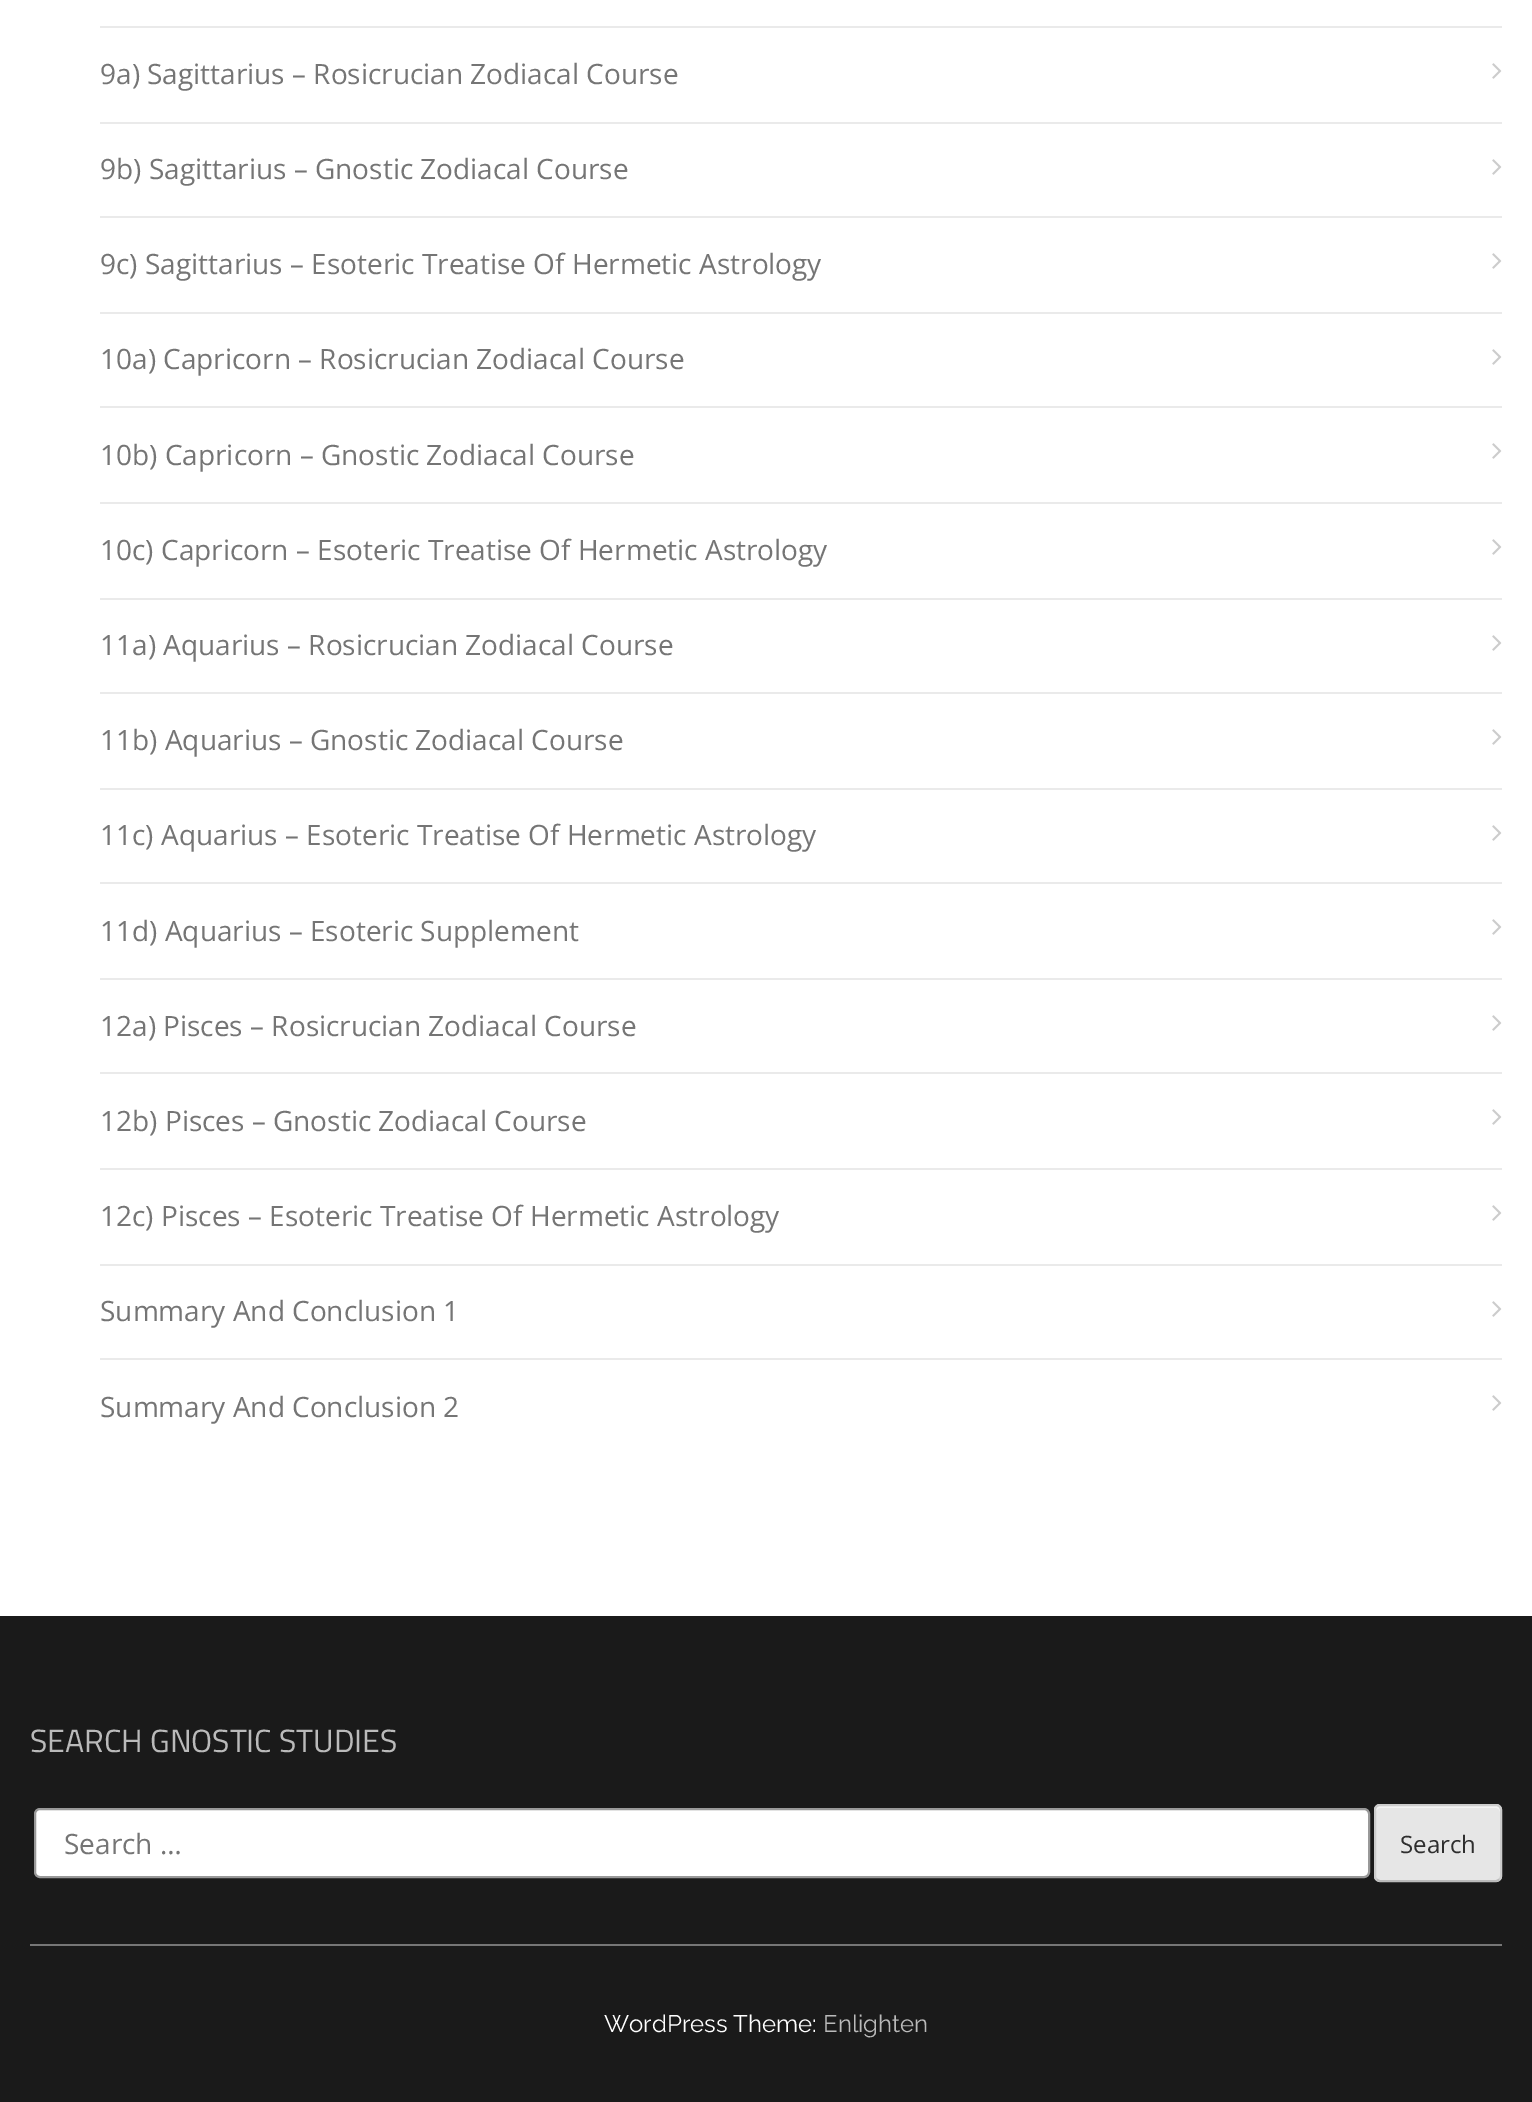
%!PS-Adobe-3.0
%%BoundingBox: 0 0 1532 2102
%%LanguageLevel: 3
%%Pages: 1
%%EndComments
%%BeginProlog
/rrect { 5 dict begin { /r /h /w /y /x } { exch def } forall
  x r add y moveto x w add y 2 copy h add r arct x w add y h add x 1 index r arct
  x y h add x y r arct x y 2 copy exch w add exch r arct closepath end } def
/drawimage { 5 dict begin { /h /w /y /x /name } { exch def } forall
  gsave x y translate w h scale
  w h 8 [w 0 0 h 0 0] name (r) file false 3 colorimage grestore end } def
%%EndProlog
%%BeginSetup
<< /PageSize [1532 2102] >> setpagedevice
%%EndSetup
%%Page: 1 1
0 2102 translate 1 -1 scale
4 setmiterlimit
1 setgray
0 0 1532 2102 rectfill
0.918 setgray
100 26 1402 2 rectfill
100 122 1402 2 rectfill
(images/1.raw) 1492 63 10 16 drawimage
100 216 1402 2 rectfill
(images/1.raw) 1492 159 10 16 drawimage
100 312 1402 2 rectfill
(images/1.raw) 1492 253 10 16 drawimage
100 406 1402 2 rectfill
(images/1.raw) 1492 349 10 16 drawimage
100 502 1402 2 rectfill
(images/1.raw) 1492 443 10 16 drawimage
100 598 1402 2 rectfill
(images/1.raw) 1492 539 10 16 drawimage
100 692 1402 2 rectfill
(images/1.raw) 1492 635 10 16 drawimage
100 788 1402 2 rectfill
(images/1.raw) 1492 729 10 16 drawimage
100 882 1402 2 rectfill
(images/1.raw) 1492 825 10 16 drawimage
100 978 1402 2 rectfill
(images/1.raw) 1492 919 10 16 drawimage
100 1072 1402 2 rectfill
(images/1.raw) 1492 1015 10 16 drawimage
100 1168 1402 2 rectfill
(images/1.raw) 1492 1109 10 16 drawimage
100 1264 1402 2 rectfill
(images/1.raw) 1492 1205 10 16 drawimage
100 1358 1402 2 rectfill
(images/1.raw) 1492 1301 10 16 drawimage
(images/1.raw) 1492 1395 10 16 drawimage
0.102 setgray
0 1616 1532 486 rectfill
0.463 setgray
30 1944 1472 2 rectfill
1 setgray
35 1809 1334 68 5 rrect gsave fill grestore
0.6 setgray
2 setlinewidth
stroke
0.902 setgray
1374 1804 128 78 6 rrect fill
0.953 setgray
newpath 1380 1808 moveto 1496 1808 lineto 1498 1808 1500 1810 1500 1812 curveto 1500 1810 lineto 1500 1808 1498 1806 1496 1806 curveto 1380 1806 lineto 1378 1806 1376 1808 1376 1810 curveto 1376 1812 lineto 1376 1810 1378 1808 1380 1808 curveto closepath fill
0.733 setgray
newpath 1499.5 1879.5 moveto 1496.5 1881 lineto 1379.5 1881 lineto 1376.5 1879.5 lineto stroke
0.8 setgray
newpath 1376.5 1879.5 moveto 1375.5 1878.5 1375 1877.5 1375 1876 curveto 1375 1810 lineto 1375 1808.5 1375.5 1807.5 1376.5 1806.5 curveto 1377.5 1805.5 1378.5 1805 1380 1805 curveto 1496 1805 lineto 1497.5 1805 1498.5 1805.5 1499.5 1806.5 curveto 1500.5 1807.5 1501 1808.5 1501 1810 curveto 1501 1876 lineto 1501 1877.5 1500.5 1878.5 1499.5 1879.5 curveto stroke
/OpenSans-Regular [28 0 0 -28 0 0] selectfont
0.459 setgray
100 84 moveto (9a\) Sagittarius – Rosicrucian Zodiacal Course) show
100 179 moveto (9b\) Sagittarius – Gnostic Zodiacal Course) show
100 274 moveto (9c\) Sagittarius – Esoteric Treatise Of Hermetic Astrology) show
100 369 moveto (10a\) Capricorn – Rosicrucian Zodiacal Course) show
100 465 moveto (10b\) Capricorn – Gnostic Zodiacal Course) show
100 560 moveto (10c\) Capricorn – Esoteric Treatise Of Hermetic Astrology) show
100 655 moveto (11a\) Aquarius – Rosicrucian Zodiacal Course) show
100 750 moveto (11b\) Aquarius – Gnostic Zodiacal Course) show
100 845 moveto (11c\) Aquarius – Esoteric Treatise Of Hermetic Astrology) show
100 941 moveto (11d\) Aquarius – Esoteric Supplement) show
100 1036 moveto (12a\) Pisces – Rosicrucian Zodiacal Course) show
100 1131 moveto (12b\) Pisces – Gnostic Zodiacal Course) show
100 1226 moveto (12c\) Pisces – Esoteric Treatise Of Hermetic Astrology) show
100 1321 moveto (Summary And Conclusion 1) show
100 1417 moveto (Summary And Conclusion 2) show
/TitilliumWeb-Regular [32 0 0 -32 0 0] selectfont
0.729 setgray
30 1752 moveto (SEARCH GNOSTIC STUDIES) show
/OpenSans-Regular [28 0 0 -28 0 0] selectfont
0.459 setgray
64 1854 moveto (Search …) show
/OpenSans-Regular [24 0 0 -24 0 0] selectfont
0.18 setgray
1400 1853 moveto (Search) show
/Raleway-Regular [24 0 0 -24 0 0] selectfont
1 setgray
604 2032 moveto (WordPress Theme:) show
0.729 setgray
823 2032 moveto (Enlighten) show
showpage
%%EOF
